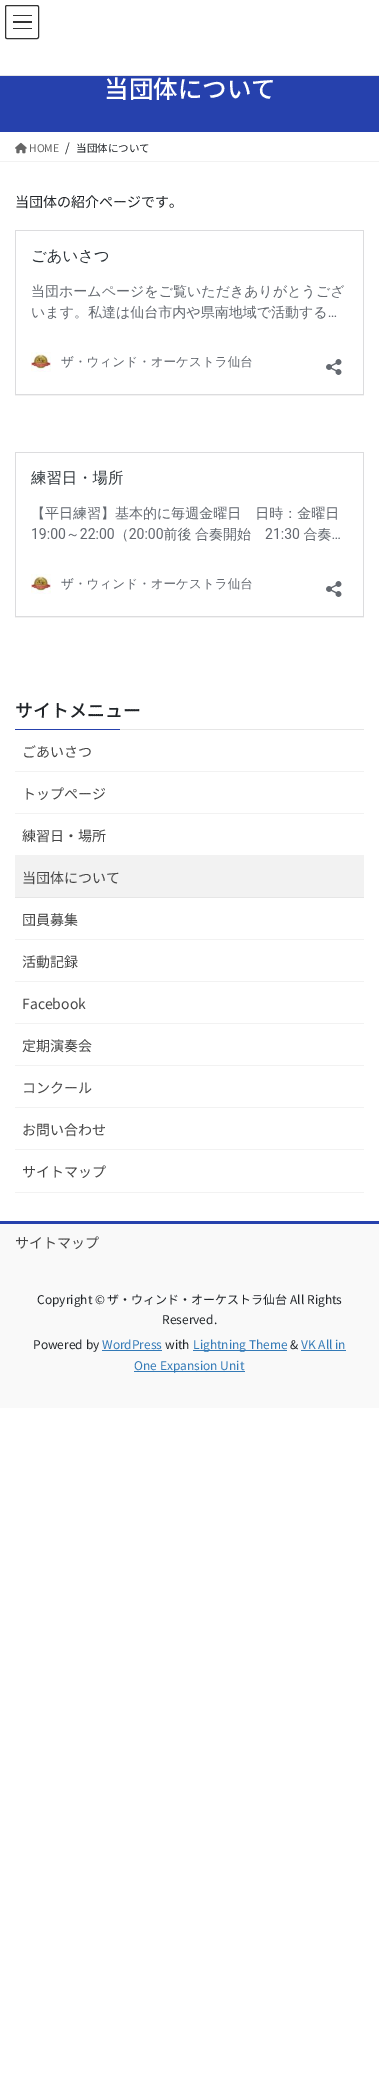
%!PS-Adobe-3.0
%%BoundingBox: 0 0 379 2076
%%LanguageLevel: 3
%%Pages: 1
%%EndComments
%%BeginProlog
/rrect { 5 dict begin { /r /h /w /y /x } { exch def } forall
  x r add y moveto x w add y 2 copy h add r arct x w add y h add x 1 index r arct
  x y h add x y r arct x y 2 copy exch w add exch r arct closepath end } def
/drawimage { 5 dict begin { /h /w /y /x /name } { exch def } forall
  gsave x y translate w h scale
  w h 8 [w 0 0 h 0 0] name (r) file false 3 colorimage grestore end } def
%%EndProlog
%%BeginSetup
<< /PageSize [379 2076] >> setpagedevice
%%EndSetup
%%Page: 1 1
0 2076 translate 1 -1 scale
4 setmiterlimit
1 setgray
0 0 379 2076 rectfill
0.2 setgray
13 15 19 1 rectfill
13 21 19 2 rectfill
13 28 19 1 rectfill
5.5 5.5 33 33 1.5 rrect stroke
0.898 setgray
0 75 379 1 rectfill
0.149 0.255 0.678 setrgbcolor
0 76 379 56 rectfill
0.949 setgray
0 161 379 1 rectfill
(images/1.raw) 15 142 12 12 drawimage
(images/2.raw) 15 230 349 166 drawimage
(images/3.raw) 15 452 349 166 drawimage
0.902 setgray
120 729 244 1 rectfill
0.149 0.255 0.678 setrgbcolor
15 729 105 1 rectfill
0.949 setgray
15 771 349 1 rectfill
15 813 349 1 rectfill
15 855 349 42 rectfill
0.902 setgray
15 897 349 1 rectfill
0.949 setgray
15 939 349 1 rectfill
15 981 349 1 rectfill
15 1023 349 1 rectfill
15 1065 349 1 rectfill
15 1107 349 1 rectfill
15 1149 349 1 rectfill
15 1192 349 1 rectfill
0.976 setgray
0 1224 379 184 rectfill
0.149 0.255 0.678 setrgbcolor
0 1221 379 3 rectfill
0.2 0.478 0.718 setrgbcolor
102 1350 60 1 rectfill
193 1350 94 1 rectfill
301 1350 45 1 rectfill
134 1371 111 1 rectfill
/NotoSansJP-Medium [24.5 0 0 -24.5 0 0] selectfont
1 setgray
104 98 moveto (当団体について) show
/NotoSansJP-Regular [10.5 0 0 -10.5 0 0] selectfont
0.4 setgray
29 152 moveto (HOME) show
/NotoSansJP-Regular [12 0 0 -12 0 0] selectfont
0.129 0.145 0.161 setrgbcolor
65 152 moveto (/) show
/NotoSansJP-Regular [10.5 0 0 -10.5 0 0] selectfont
76 152 moveto (当団体について) show
/NotoSansJP-Regular [14 0 0 -14 0 0] selectfont
15 207 moveto (当団体の紹介ページです。) show
/NotoSansJP-Medium [18 0 0 -18 0 0] selectfont
15 717 moveto (サイトメニュー) show
/NotoSansJP-Regular [14 0 0 -14 0 0] selectfont
0.275 setgray
22 757 moveto (ごあいさつ) show
22 799 moveto (トップページ) show
22 841 moveto (練習日・場所) show
22 883 moveto (当団体について) show
22 925 moveto (団員募集) show
22 967 moveto (活動記録) show
22 1009 moveto (Facebook) show
22 1051 moveto (定期演奏会) show
22 1093 moveto (コンクール) show
22 1135 moveto (お問い合わせ) show
22 1177 moveto (サイトマップ) show
15 1248 moveto (サイトマップ) show
/NotoSansJP-Regular [12 0 0 -12 0 0] selectfont
0.129 0.145 0.161 setrgbcolor
37 1304 moveto (Copyright © ザ・ウィンド・オーケストラ仙台 All Rights) show
162 1324 moveto (Reserved.) show
33 1349 moveto (Powered by) show
0.2 0.478 0.718 setrgbcolor
102 1349 moveto (WordPress) show
0.129 0.145 0.161 setrgbcolor
165 1349 moveto (with) show
0.2 0.478 0.718 setrgbcolor
193 1349 moveto (Lightning Theme) show
0.129 0.145 0.161 setrgbcolor
290 1349 moveto (&) show
0.2 0.478 0.718 setrgbcolor
301 1349 moveto (VK All in) show
134 1370 moveto (One Expansion Unit) show
showpage
%%EOF
